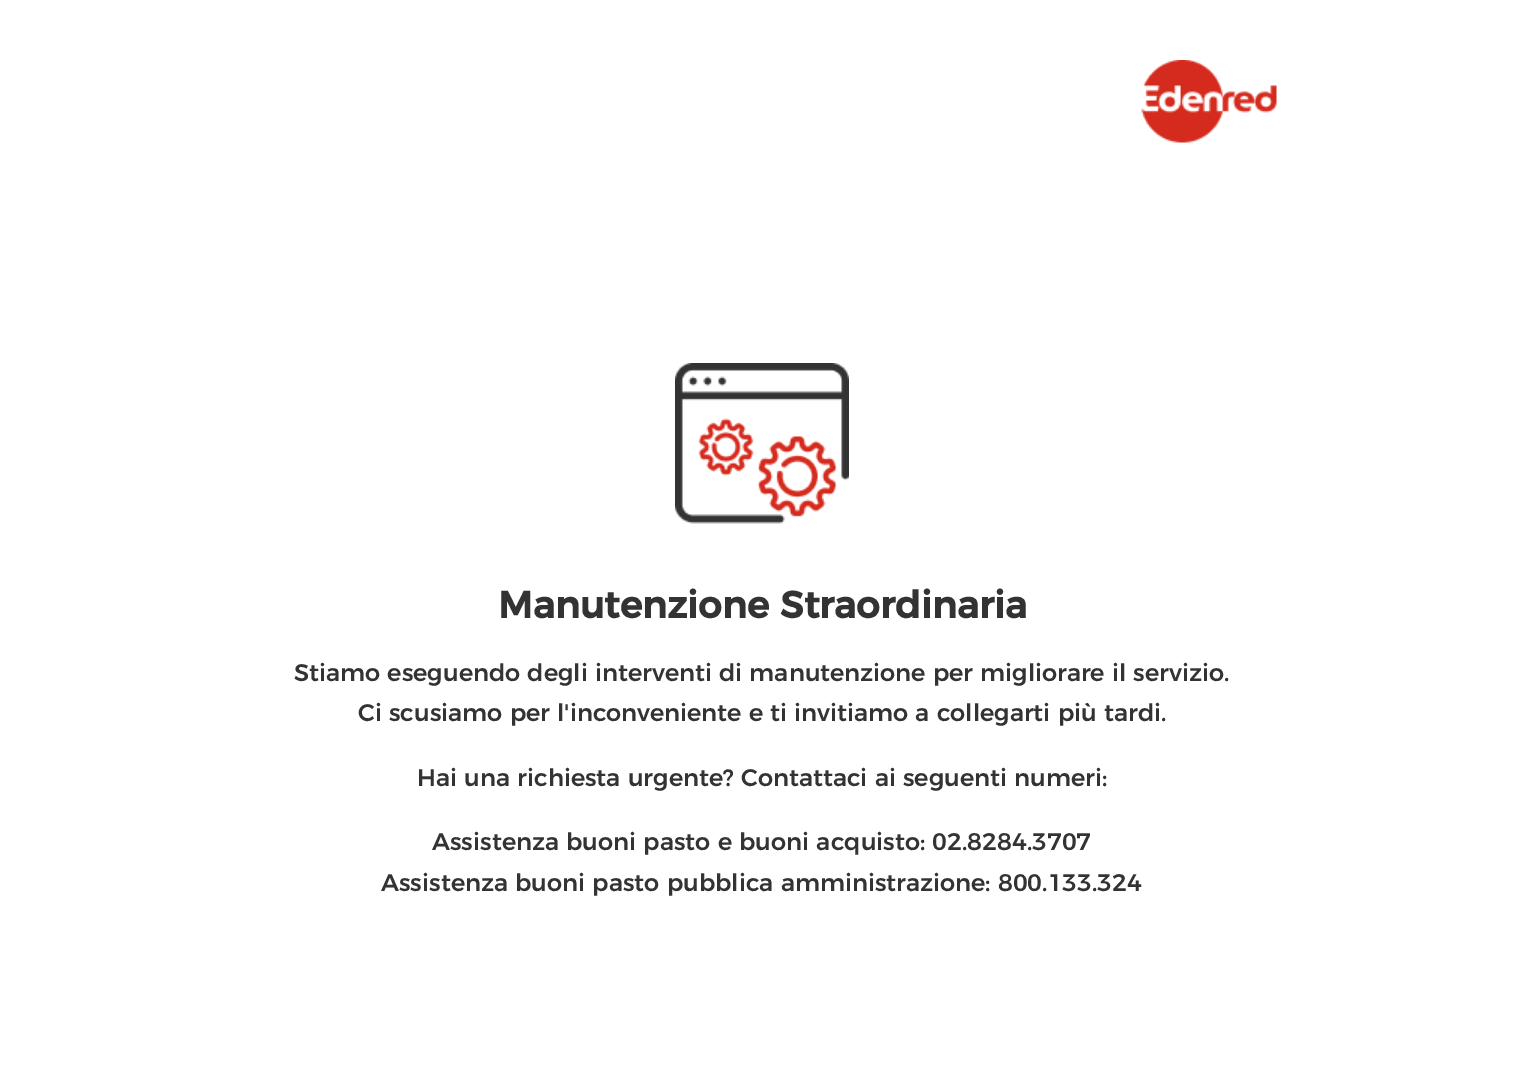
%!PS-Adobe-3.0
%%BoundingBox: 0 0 1524 1074
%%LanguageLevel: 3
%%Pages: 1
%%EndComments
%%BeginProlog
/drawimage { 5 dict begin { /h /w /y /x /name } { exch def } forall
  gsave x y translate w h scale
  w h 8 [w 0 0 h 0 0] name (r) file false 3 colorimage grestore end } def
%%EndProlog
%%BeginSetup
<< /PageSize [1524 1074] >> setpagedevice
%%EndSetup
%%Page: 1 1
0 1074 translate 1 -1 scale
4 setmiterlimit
1 setgray
0 0 1524 1074 rectfill
(images/1.raw) 1141 60 136 83 drawimage
(images/2.raw) 675 363 174 161 drawimage
/Montserrat-Bold [37.5 0 0 -37.5 0 0] selectfont
0.2 setgray
498 618 moveto (Manutenzione Straordinaria) show
/Montserrat-Medium [24 0 0 -24 0 0] selectfont
294 681 moveto (Stiamo eseguendo degli interventi di manutenzione per migliorare il servizio.) show
358 721 moveto (Ci scusiamo per l'inconveniente e ti invitiamo a collegarti più tardi.) show
417 786 moveto (Hai una richiesta urgente? Contattaci ai seguenti numeri:) show
432 850 moveto (Assistenza buoni pasto e buoni acquisto: 02.8284.3707) show
381 891 moveto (Assistenza buoni pasto pubblica amministrazione: 800.133.324) show
showpage
%%EOF
